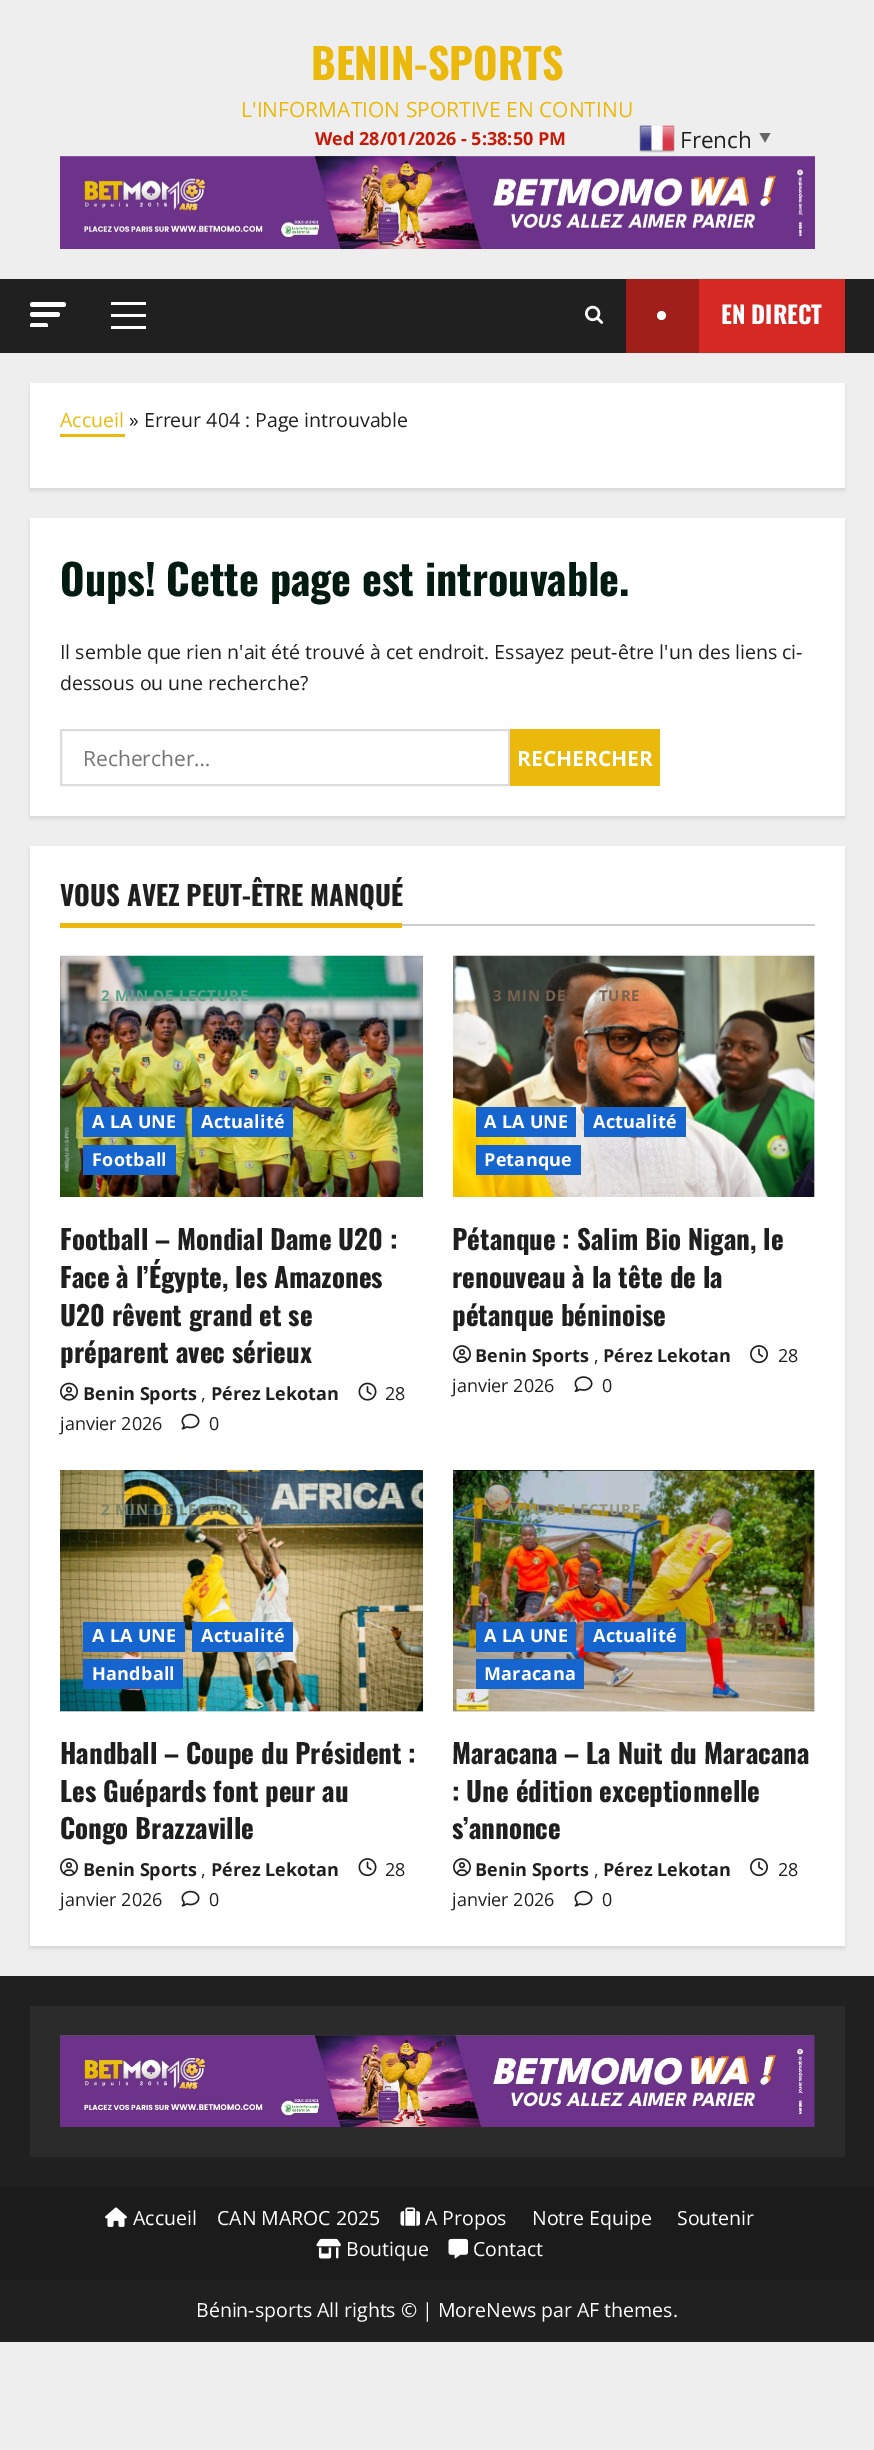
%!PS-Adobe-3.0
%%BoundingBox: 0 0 874 2450
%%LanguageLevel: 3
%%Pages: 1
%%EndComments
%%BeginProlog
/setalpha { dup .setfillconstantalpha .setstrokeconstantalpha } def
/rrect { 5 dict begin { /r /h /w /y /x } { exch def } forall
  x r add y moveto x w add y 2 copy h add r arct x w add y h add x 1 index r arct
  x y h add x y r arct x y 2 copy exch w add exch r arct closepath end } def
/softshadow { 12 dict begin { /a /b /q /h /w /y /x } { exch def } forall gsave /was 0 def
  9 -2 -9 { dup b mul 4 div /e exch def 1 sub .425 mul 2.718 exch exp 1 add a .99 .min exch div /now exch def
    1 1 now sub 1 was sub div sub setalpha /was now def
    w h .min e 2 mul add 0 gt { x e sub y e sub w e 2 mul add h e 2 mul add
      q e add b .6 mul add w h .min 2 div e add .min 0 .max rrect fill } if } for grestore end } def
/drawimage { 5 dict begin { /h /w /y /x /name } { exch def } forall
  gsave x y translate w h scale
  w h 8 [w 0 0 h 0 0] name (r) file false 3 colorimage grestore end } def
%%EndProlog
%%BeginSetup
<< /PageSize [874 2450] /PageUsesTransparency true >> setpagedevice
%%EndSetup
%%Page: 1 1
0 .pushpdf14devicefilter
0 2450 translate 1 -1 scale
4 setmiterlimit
0.933 setgray
0 0 874 2450 rectfill
(images/1.raw) 639 125 36 28 drawimage
(images/2.raw) 60 156 755 93 drawimage
0.125 setgray
0 279 874 74 rectfill
1 setgray
30 302 36 5 2.5 rrect fill
30 312 30 5 2.5 rrect fill
gsave
30 302 36 25 rectclip
30 323 18 5 2.5 rrect fill
grestore
111 314 35 3 rectfill
111 302 35 3 rectfill
111 326 35 3 rectfill
(images/3.raw) 585 305 19 19 drawimage
0.843 0.161 0.141 setrgbcolor
699 279 146 74 rectfill
0.631 0.122 0.106 setrgbcolor
626 279 73 74 rectfill
1 setgray
newpath 661.5 315.5 4.5 0 360 arc closepath fill
0 setgray
30 386 815 105 0 1.5 0.08 softshadow
1 setgray
30 383 815 105 rectfill
0.922 0.722 0.047 setrgbcolor
60 434 65 3 rectfill
0 setgray
30 521 815 298 0 1.5 0.08 softshadow
1 setgray
30 518 815 298 rectfill
0.863 setgray
2 setlinewidth
61 730 448 55 rectstroke
0.922 0.722 0.047 setrgbcolor
510 729 150 57 rectfill
0 setgray
30 849 815 1100 0 1.5 0.08 softshadow
1 setgray
30 846 815 1100 rectfill
0.8 setgray
402 924 413 2 rectfill
0.922 0.722 0.047 setrgbcolor
60 923 342 5 rectfill
(images/4.raw) 60 955 363 242 drawimage
0.086 0.396 0.812 setrgbcolor
83 1107 102 30 rectfill
192 1107 101 30 rectfill
83 1145 93 30 rectfill
(images/5.raw) 358 1382 19 19 drawimage
(images/6.raw) 60 1382 18 19 drawimage
(images/7.raw) 181 1413 19 17 drawimage
0.925 setgray
814 956 1 241 rectfill
(images/8.raw) 453 955 362 242 drawimage
0.086 0.396 0.812 setrgbcolor
476 1107 100 30 rectfill
584 1107 102 30 rectfill
476 1145 105 30 rectfill
(images/9.raw) 750 1345 18 19 drawimage
(images/10.raw) 453 1345 18 19 drawimage
(images/11.raw) 574 1376 19 16 drawimage
0.925 setgray
60 1711 363 1 rectfill
(images/12.raw) 60 1470 363 242 drawimage
0.086 0.396 0.812 setrgbcolor
83 1622 102 30 rectfill
192 1622 101 30 rectfill
83 1659 100 30 rectfill
(images/13.raw) 358 1858 19 19 drawimage
(images/10.raw) 60 1858 18 19 drawimage
(images/7.raw) 181 1890 19 17 drawimage
0.925 setgray
453 1470 362 242 rectfill
(images/14.raw) 453 1470 362 242 drawimage
0.086 0.396 0.812 setrgbcolor
476 1622 100 30 rectfill
584 1622 102 30 rectfill
476 1659 108 30 rectfill
(images/9.raw) 750 1858 18 19 drawimage
(images/10.raw) 453 1858 18 19 drawimage
(images/7.raw) 574 1890 19 17 drawimage
0.125 setgray
0 1976 874 366 rectfill
0.169 setgray
30 2006 815 151 rectfill
(images/15.raw) 60 2035 755 92 drawimage
0.106 setgray
0 2187 874 93 rectfill
(images/16.raw) 105 2207 22 20 drawimage
(images/17.raw) 400 2207 20 19 drawimage
(images/18.raw) 316 2238 25 21 drawimage
(images/19.raw) 448 2238 20 21 drawimage
/Oswald-Bold [42 0 0 -42 0 0] selectfont
0.922 0.722 0.047 setrgbcolor
311 80 moveto (BENIN-SPORTS) show
/OpenSans-Regular [21 0 0 -21 0 0] selectfont
241 117 moveto (L'INFORMATION SPORTIVE EN CONTINU) show
/OpenSans-Bold [18 0 0 -18 0 0] selectfont
0.776 0.102 0.035 setrgbcolor
315 145 moveto (Wed 28/01/2026 - 5:38:50 PM) show
/OpenSans-Regular [22.5 0 0 -22.5 0 0] selectfont
0.122 setgray
680 148 moveto (French) show
/NotoSansCJKSC-Bold [12 0 0 -12 0 0] selectfont
0.4 setgray
759 142 moveto (▼) show
/Oswald-Bold [24 0 0 -24 0 0] selectfont
1 setgray
721 324 moveto (EN DIRECT) show
/OpenSans-Regular [19.5 0 0 -19.5 0 0] selectfont
0.922 0.722 0.047 setrgbcolor
60 427 moveto (Accueil) show
0.122 setgray
129 427 moveto (» Erreur 404 : Page introuvable) show
/Oswald-Bold [42 0 0 -42 0 0] selectfont
0.012 0.106 0.067 setrgbcolor
60 596 moveto (Oups! Cette page est introuvable.) show
/OpenSans-Regular [19.5 0 0 -19.5 0 0] selectfont
0.122 setgray
60 659 moveto (Il semble que rien n'ait été trouvé à cet endroit. Essayez peut-être l'un des liens ci-) show
60 690 moveto (dessous ou une recherche?) show
/OpenSans-Regular [21 0 0 -21 0 0] selectfont
0.459 setgray
83 766 moveto (Rechercher…) show
/OpenSans-Bold [21 0 0 -21 0 0] selectfont
1 setgray
517 766 moveto (RECHERCHER) show
/Oswald-Bold [27 0 0 -27 0 0] selectfont
0.122 setgray
60 906 moveto (VOUS AVEZ PEUT-ÊTRE MANQUÉ) show
/OpenSans-Bold [15 0 0 -15 0 0] selectfont
0.369 0.635 0.553 setrgbcolor
101 1001 moveto 0.75 0 (2 MIN DE LECTURE) ashow
/OpenSans-Bold [18 0 0 -18 0 0] selectfont
1 setgray
92 1128 moveto 0.25 0 (A LA UNE) ashow
201 1128 moveto 0.25 0 (Actualité) ashow
92 1166 moveto 0.25 0 (Football) ashow
/Oswald-Bold [27 0 0 -27 0 0] selectfont
0.122 setgray
60 1250 moveto (Football – Mondial Dame U20 :) show
60 1288 moveto (Face à l’Égypte, les Amazones) show
60 1326 moveto (U20 rêvent grand et se) show
60 1363 moveto (préparent avec sérieux) show
/OpenSans-Regular [18 0 0 -18 0 0] selectfont
385 1400 moveto (28) show
60 1430 moveto (janvier 2026) show
/OpenSans-Bold [18 0 0 -18 0 0] selectfont
83 1400 moveto (Benin Sports) show
/OpenSans-Regular [18 0 0 -18 0 0] selectfont
201 1400 moveto (,) show
/OpenSans-Bold [18 0 0 -18 0 0] selectfont
211 1400 moveto (Pérez Lekotan) show
/OpenSans-Regular [18 0 0 -18 0 0] selectfont
209 1430 moveto (0) show
/OpenSans-Bold [15 0 0 -15 0 0] selectfont
0.475 0.384 0.31 setrgbcolor
493 1001 moveto 0.75 0 (3 MIN DE) ashow
599 1001 moveto 0.75 0 (TURE) ashow
/OpenSans-Bold [18 0 0 -18 0 0] selectfont
1 setgray
484 1128 moveto 0.25 0 (A LA UNE) ashow
593 1128 moveto 0.25 0 (Actualité) ashow
484 1166 moveto 0.25 0 (Petanque) ashow
/Oswald-Bold [27 0 0 -27 0 0] selectfont
0.122 setgray
452 1250 moveto (Pétanque : Salim Bio Nigan, le) show
452 1288 moveto (renouveau à la tête de la) show
452 1326 moveto (pétanque béninoise) show
/OpenSans-Regular [18 0 0 -18 0 0] selectfont
778 1362 moveto (28) show
452 1392 moveto (janvier 2026) show
/OpenSans-Bold [18 0 0 -18 0 0] selectfont
475 1362 moveto (Benin Sports) show
/OpenSans-Regular [18 0 0 -18 0 0] selectfont
594 1362 moveto (,) show
/OpenSans-Bold [18 0 0 -18 0 0] selectfont
603 1362 moveto (Pérez Lekotan) show
/OpenSans-Regular [18 0 0 -18 0 0] selectfont
602 1392 moveto (0) show
/OpenSans-Bold [15 0 0 -15 0 0] selectfont
0.478 0.51 0.404 setrgbcolor
101 1515 moveto 0.75 0 (2 MIN DE LECTURE) ashow
/OpenSans-Bold [18 0 0 -18 0 0] selectfont
1 setgray
92 1642 moveto 0.25 0 (A LA UNE) ashow
201 1642 moveto 0.25 0 (Actualité) ashow
92 1680 moveto 0.25 0 (Handball) ashow
/Oswald-Bold [27 0 0 -27 0 0] selectfont
0.122 setgray
60 1764 moveto (Handball – Coupe du Président :) show
60 1802 moveto (Les Guépards font peur au) show
60 1839 moveto (Congo Brazzaville) show
/OpenSans-Regular [18 0 0 -18 0 0] selectfont
385 1876 moveto (28) show
60 1906 moveto (janvier 2026) show
/OpenSans-Bold [18 0 0 -18 0 0] selectfont
83 1876 moveto (Benin Sports) show
/OpenSans-Regular [18 0 0 -18 0 0] selectfont
201 1876 moveto (,) show
/OpenSans-Bold [18 0 0 -18 0 0] selectfont
211 1876 moveto (Pérez Lekotan) show
/OpenSans-Regular [18 0 0 -18 0 0] selectfont
209 1906 moveto (0) show
/OpenSans-Bold [15 0 0 -15 0 0] selectfont
0.573 0.573 0.451 setrgbcolor
493 1515 moveto 0.75 0 (2 MIN DE LECTURE) ashow
/OpenSans-Bold [18 0 0 -18 0 0] selectfont
1 setgray
484 1642 moveto 0.25 0 (A LA UNE) ashow
593 1642 moveto 0.25 0 (Actualité) ashow
484 1680 moveto 0.25 0 (Maracana) ashow
/Oswald-Bold [27 0 0 -27 0 0] selectfont
0.122 setgray
452 1764 moveto (Maracana – La Nuit du Maracana) show
452 1802 moveto (: Une édition exceptionnelle) show
452 1839 moveto (s’annonce) show
/OpenSans-Regular [18 0 0 -18 0 0] selectfont
778 1876 moveto (28) show
452 1906 moveto (janvier 2026) show
/OpenSans-Bold [18 0 0 -18 0 0] selectfont
475 1876 moveto (Benin Sports) show
/OpenSans-Regular [18 0 0 -18 0 0] selectfont
594 1876 moveto (,) show
/OpenSans-Bold [18 0 0 -18 0 0] selectfont
603 1876 moveto (Pérez Lekotan) show
/OpenSans-Regular [18 0 0 -18 0 0] selectfont
602 1906 moveto (0) show
/OpenSans-Regular [19.5 0 0 -19.5 0 0] selectfont
1 setgray
133 2225 moveto (Accueil) show
217 2225 moveto (CAN MAROC 2025) show
425 2225 moveto (A Propos) show
532 2225 moveto (Notre Equipe) show
677 2225 moveto (Soutenir) show
346 2256 moveto (Boutique) show
473 2256 moveto (Contact) show
196 2317 moveto (Bénin-sports All rights © | MoreNews par AF themes.) show
.poppdf14devicefilter showpage
%%EOF
